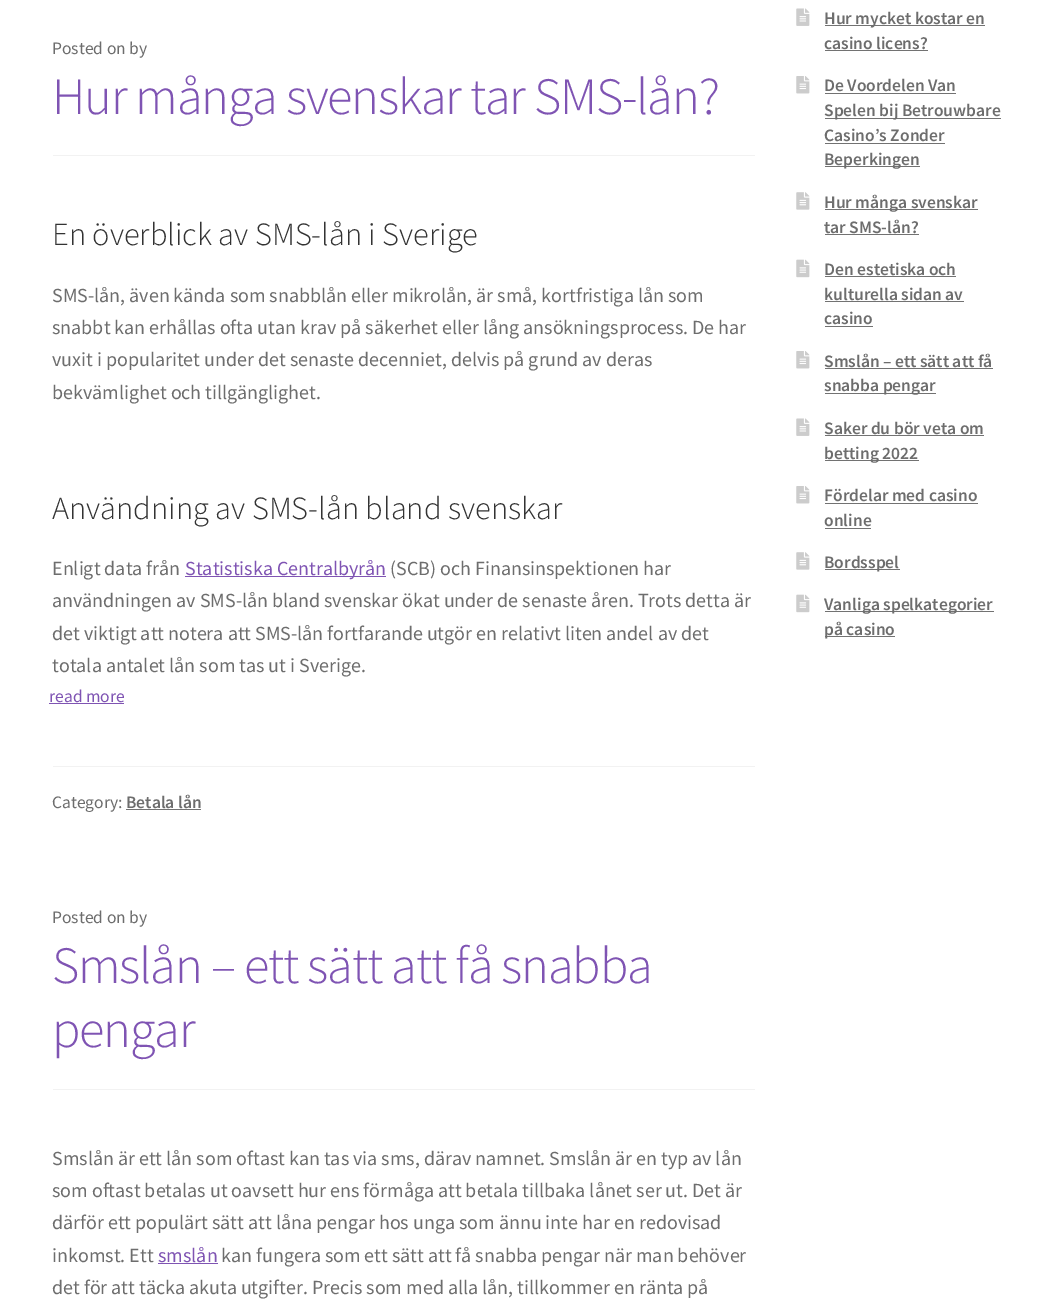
%!PS-Adobe-3.0
%%BoundingBox: 0 0 1054 1316
%%LanguageLevel: 3
%%Pages: 1
%%EndComments
%%BeginProlog
/drawimage { 5 dict begin { /h /w /y /x /name } { exch def } forall
  gsave x y translate w h scale
  w h 8 [w 0 0 h 0 0] name (r) file false 3 colorimage grestore end } def
%%EndProlog
%%BeginSetup
<< /PageSize [1054 1316] >> setpagedevice
%%EndSetup
%%Page: 1 1
0 1316 translate 1 -1 scale
4 setmiterlimit
1 setgray
0 0 1054 1316 rectfill
0.949 setgray
53 155 702 1 rectfill
0.498 0.329 0.702 setrgbcolor
185 576 201 1 rectfill
49 703 75 1 rectfill
0.949 setgray
53 766 702 1 rectfill
0.447 setgray
126 809 75 1 rectfill
0.949 setgray
53 1089 702 1 rectfill
0.498 0.329 0.702 setrgbcolor
158 1263 60 1 rectfill
(images/1.raw) 796 8 14 18 drawimage
0.447 setgray
825 25 160 1 rectfill
825 50 103 1 rectfill
(images/2.raw) 796 76 14 18 drawimage
825 93 131 1 rectfill
825 118 176 1 rectfill
825 143 120 1 rectfill
825 166 95 1 rectfill
(images/3.raw) 796 192 14 18 drawimage
825 209 153 1 rectfill
825 234 94 1 rectfill
(images/4.raw) 796 259 14 19 drawimage
825 276 131 1 rectfill
825 301 139 1 rectfill
825 326 48 1 rectfill
(images/2.raw) 796 351 14 18 drawimage
825 368 168 1 rectfill
825 393 111 1 rectfill
(images/1.raw) 796 418 14 18 drawimage
825 435 159 1 rectfill
825 460 94 1 rectfill
(images/2.raw) 796 486 14 18 drawimage
825 503 153 1 rectfill
825 528 46 1 rectfill
(images/3.raw) 796 552 14 18 drawimage
825 569 75 1 rectfill
(images/4.raw) 796 594 14 19 drawimage
825 611 169 1 rectfill
825 636 70 1 rectfill
/SourceSansPro-Regular [17.5 0 0 -17.5 0 0] selectfont
0.427 setgray
52 54 moveto (Posted on by) show
/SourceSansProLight-Light [52.4 0 0 -52.4 0 0] selectfont
0.498 0.329 0.702 setrgbcolor
52 114 moveto -1.25 0 (Hur många svenskar tar SMS-lån?) ashow
/SourceSansProLight-Light [32.4 0 0 -32.4 0 0] selectfont
0.2 setgray
52 245 moveto (En överblick av SMS-lån i Sverige) show
/SourceSansPro-Regular [20 0 0 -20 0 0] selectfont
0.427 setgray
52 302 moveto (SMS-lån, även kända som snabblån eller mikrolån, är små, kortfristiga lån som) show
52 334 moveto (snabbt kan erhållas ofta utan krav på säkerhet eller lång ansökningsprocess. De har) show
52 366 moveto (vuxit i popularitet under det senaste decenniet, delvis på grund av deras) show
52 399 moveto (bekvämlighet och tillgänglighet.) show
/SourceSansProLight-Light [32.4 0 0 -32.4 0 0] selectfont
0.2 setgray
52 519 moveto (Användning av SMS-lån bland svenskar) show
/SourceSansPro-Regular [20 0 0 -20 0 0] selectfont
0.427 setgray
52 575 moveto (Enligt data från) show
0.498 0.329 0.702 setrgbcolor
185 575 moveto (Statistiska Centralbyrån) show
0.427 setgray
390 575 moveto (\(SCB\) och Finansinspektionen har) show
52 607 moveto (användningen av SMS-lån bland svenskar ökat under de senaste åren. Trots detta är) show
52 640 moveto (det viktigt att notera att SMS-lån fortfarande utgör en relativt liten andel av det) show
52 672 moveto (totala antalet lån som tas ut i Sverige.) show
/SourceSansPro-Regular [17.5 0 0 -17.5 0 0] selectfont
0.498 0.329 0.702 setrgbcolor
49 702 moveto (read more) show
0.427 setgray
52 808 moveto (Category:) show
/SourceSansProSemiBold-SemiBold [17.5 0 0 -17.5 0 0] selectfont
126 808 moveto (Betala lån) show
/SourceSansPro-Regular [17.5 0 0 -17.5 0 0] selectfont
52 923 moveto (Posted on by) show
/SourceSansProLight-Light [52.4 0 0 -52.4 0 0] selectfont
0.498 0.329 0.702 setrgbcolor
52 983 moveto -1.25 0 (Smslån – ett sätt att få snabba) ashow
52 1047 moveto -1.25 0 (pengar) ashow
/SourceSansPro-Regular [20 0 0 -20 0 0] selectfont
0.427 setgray
52 1165 moveto (Smslån är ett lån som oftast kan tas via sms, därav namnet. Smslån är en typ av lån) show
52 1197 moveto (som oftast betalas ut oavsett hur ens förmåga att betala tillbaka lånet ser ut. Det är) show
52 1229 moveto (därför ett populärt sätt att låna pengar hos unga som ännu inte har en redovisad) show
52 1262 moveto (inkomst. Ett) show
0.498 0.329 0.702 setrgbcolor
158 1262 moveto (smslån) show
0.427 setgray
221 1262 moveto (kan fungera som ett sätt att få snabba pengar när man behöver) show
52 1294 moveto (det för att täcka akuta utgifter. Precis som med alla lån, tillkommer en ränta på) show
/SourceSansProSemiBold-SemiBold [17.5 0 0 -17.5 0 0] selectfont
824 24 moveto (Hur mycket kostar en) show
824 49 moveto (casino licens?) show
824 91 moveto (De Voordelen Van) show
824 116 moveto (Spelen bij Betrouwbare) show
824 141 moveto (Casino’s Zonder) show
824 165 moveto (Beperkingen) show
824 208 moveto (Hur många svenskar) show
824 233 moveto (tar SMS-lån?) show
824 275 moveto (Den estetiska och) show
824 300 moveto (kulturella sidan av) show
824 324 moveto (casino) show
824 367 moveto (Smslån – ett sätt att få) show
824 391 moveto (snabba pengar) show
824 434 moveto (Saker du bör veta om) show
824 459 moveto (betting 2022) show
824 501 moveto (Fördelar med casino) show
824 526 moveto (online) show
824 568 moveto (Bordsspel) show
824 610 moveto (Vanliga spelkategorier) show
824 635 moveto (på casino) show
showpage
%%EOF
